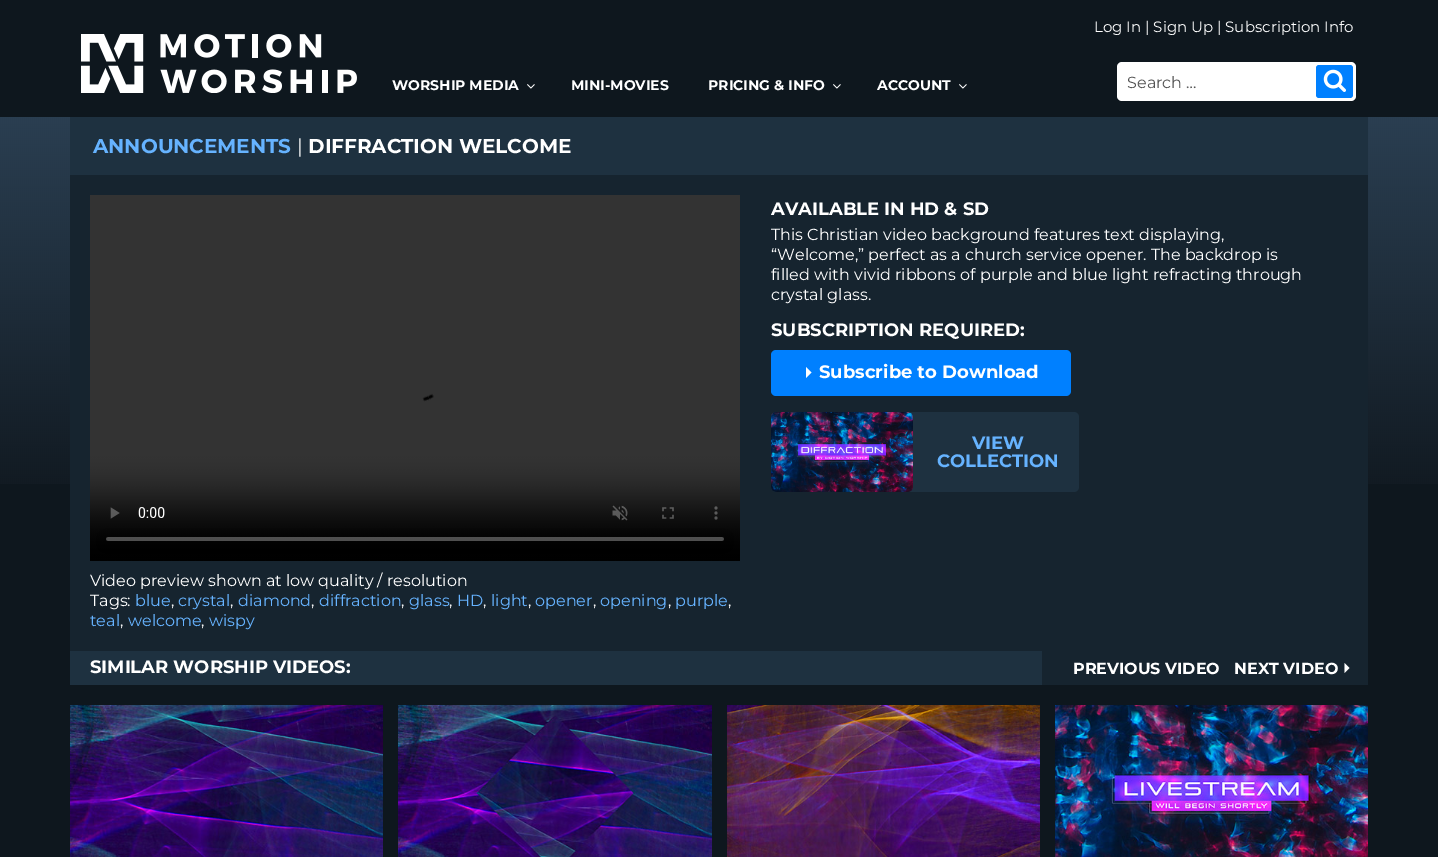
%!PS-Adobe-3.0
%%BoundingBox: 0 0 1438 857
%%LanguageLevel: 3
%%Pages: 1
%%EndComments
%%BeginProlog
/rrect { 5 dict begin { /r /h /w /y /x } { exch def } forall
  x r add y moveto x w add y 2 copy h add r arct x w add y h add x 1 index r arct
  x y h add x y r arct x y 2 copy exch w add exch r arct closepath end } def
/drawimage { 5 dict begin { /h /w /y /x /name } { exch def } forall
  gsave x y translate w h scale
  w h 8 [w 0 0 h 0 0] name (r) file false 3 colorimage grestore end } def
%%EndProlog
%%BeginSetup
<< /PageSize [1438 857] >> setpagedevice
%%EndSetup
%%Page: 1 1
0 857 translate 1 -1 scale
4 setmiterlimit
0.055 0.09 0.118 setrgbcolor
0 0 1438 857 rectfill
(images/1.raw) 81 34 276 59 drawimage
(images/2.raw) 527 84 8 5 drawimage
(images/2.raw) 833 84 8 5 drawimage
(images/2.raw) 959 84 8 5 drawimage
1 setgray
1117 62 239 39 5 rrect fill
0 0.502 1 setrgbcolor
1316 65 37 33 3 rrect fill
(images/3.raw) 1323 69 23 23 drawimage
(images/4.raw) 0 117 1438 367 drawimage
0.118 0.192 0.251 setrgbcolor
70 117 1298 58 rectfill
0.086 0.141 0.184 setrgbcolor
70 175 1298 476 rectfill
0 0.502 1 setrgbcolor
771 350 300 46 5 rrect fill
1 setgray
newpath 811.5 372.5 moveto 806 378 lineto 806 367 lineto closepath fill
0.118 0.192 0.251 setrgbcolor
771 412 308 80 5 rrect fill
(images/5.raw) 771 412 142 80 drawimage
(images/6.raw) 90 195 650 366 drawimage
70 651 972 34 rectfill
0.086 0.141 0.184 setrgbcolor
1042 651 326 34 rectfill
1 setgray
newpath 1349.5 668 moveto 1344.5 673 lineto 1344.5 663 lineto closepath fill
(images/7.raw) 70 705 313 152 drawimage
(images/8.raw) 398 705 314 152 drawimage
(images/9.raw) 727 705 313 152 drawimage
(images/10.raw) 1055 705 313 152 drawimage
/Montserrat-Regular [15 0 0 -15 0 0] selectfont
1094 32 moveto (Log In | Sign Up | Subscription Info) show
/Montserrat-Bold [14 0 0 -14 0 0] selectfont
392 90 moveto (WORSHIP MEDIA) show
571 90 moveto (MINI-MOVIES) show
708 90 moveto (PRICING & INFO) show
877 90 moveto (ACCOUNT) show
/Montserrat-Regular [16 0 0 -16 0 0] selectfont
0.333 setgray
1127 88 moveto (Search …) show
/Montserrat-Bold [20 0 0 -20 0 0] selectfont
0.4 0.702 1 setrgbcolor
93 153 moveto (ANNOUNCEMENTS) show
/Montserrat-Regular [20 0 0 -20 0 0] selectfont
1 setgray
297 153 moveto (|) show
/Montserrat-Bold [20 0 0 -20 0 0] selectfont
308 153 moveto (DIFFRACTION WELCOME) show
/Montserrat-Bold [18 0 0 -18 0 0] selectfont
771 215 moveto (AVAILABLE IN HD & SD) show
/Montserrat-Regular [16 0 0 -16 0 0] selectfont
771 240 moveto (This Christian video background features text displaying,) show
771 260 moveto (“Welcome,” perfect as a church service opener. The backdrop is) show
771 280 moveto (filled with vivid ribbons of purple and blue light refracting through) show
771 300 moveto (crystal glass.) show
/Montserrat-Bold [18 0 0 -18 0 0] selectfont
771 336 moveto (SUBSCRIPTION REQUIRED:) show
819 378 moveto (Subscribe to Download) show
0.4 0.702 1 setrgbcolor
972 449 moveto (VIEW) show
937 467 moveto (COLLECTION) show
/Montserrat-Regular [16 0 0 -16 0 0] selectfont
1 setgray
90 586 moveto (Video preview shown at low quality / resolution) show
90 606 moveto (Tags:) show
0.4 0.702 1 setrgbcolor
135 606 moveto (blue) show
1 setgray
171 606 moveto (,) show
0.4 0.702 1 setrgbcolor
178 606 moveto (crystal) show
1 setgray
230 606 moveto (,) show
0.4 0.702 1 setrgbcolor
238 606 moveto (diamond) show
1 setgray
311 606 moveto (,) show
0.4 0.702 1 setrgbcolor
319 606 moveto (diffraction) show
1 setgray
401 606 moveto (,) show
0.4 0.702 1 setrgbcolor
409 606 moveto (glass) show
1 setgray
449 606 moveto (,) show
0.4 0.702 1 setrgbcolor
457 606 moveto (HD) show
1 setgray
483 606 moveto (,) show
0.4 0.702 1 setrgbcolor
491 606 moveto (light) show
1 setgray
528 606 moveto (,) show
0.4 0.702 1 setrgbcolor
535 606 moveto (opener) show
1 setgray
593 606 moveto (,) show
0.4 0.702 1 setrgbcolor
600 606 moveto (opening) show
1 setgray
668 606 moveto (,) show
0.4 0.702 1 setrgbcolor
675 606 moveto (purple) show
1 setgray
728 606 moveto (,) show
0.4 0.702 1 setrgbcolor
90 626 moveto (teal) show
1 setgray
120 626 moveto (,) show
0.4 0.702 1 setrgbcolor
128 626 moveto (welcome) show
1 setgray
201 626 moveto (,) show
0.4 0.702 1 setrgbcolor
209 626 moveto (wispy) show
/Montserrat-Bold [18 0 0 -18 0 0] selectfont
1 setgray
90 673 moveto (SIMILAR WORSHIP VIDEOS:) show
/Montserrat-Bold [16 0 0 -16 0 0] selectfont
1073 674 moveto (PREVIOUS VIDEO) show
1234 674 moveto (NEXT VIDEO) show
showpage
%%EOF
